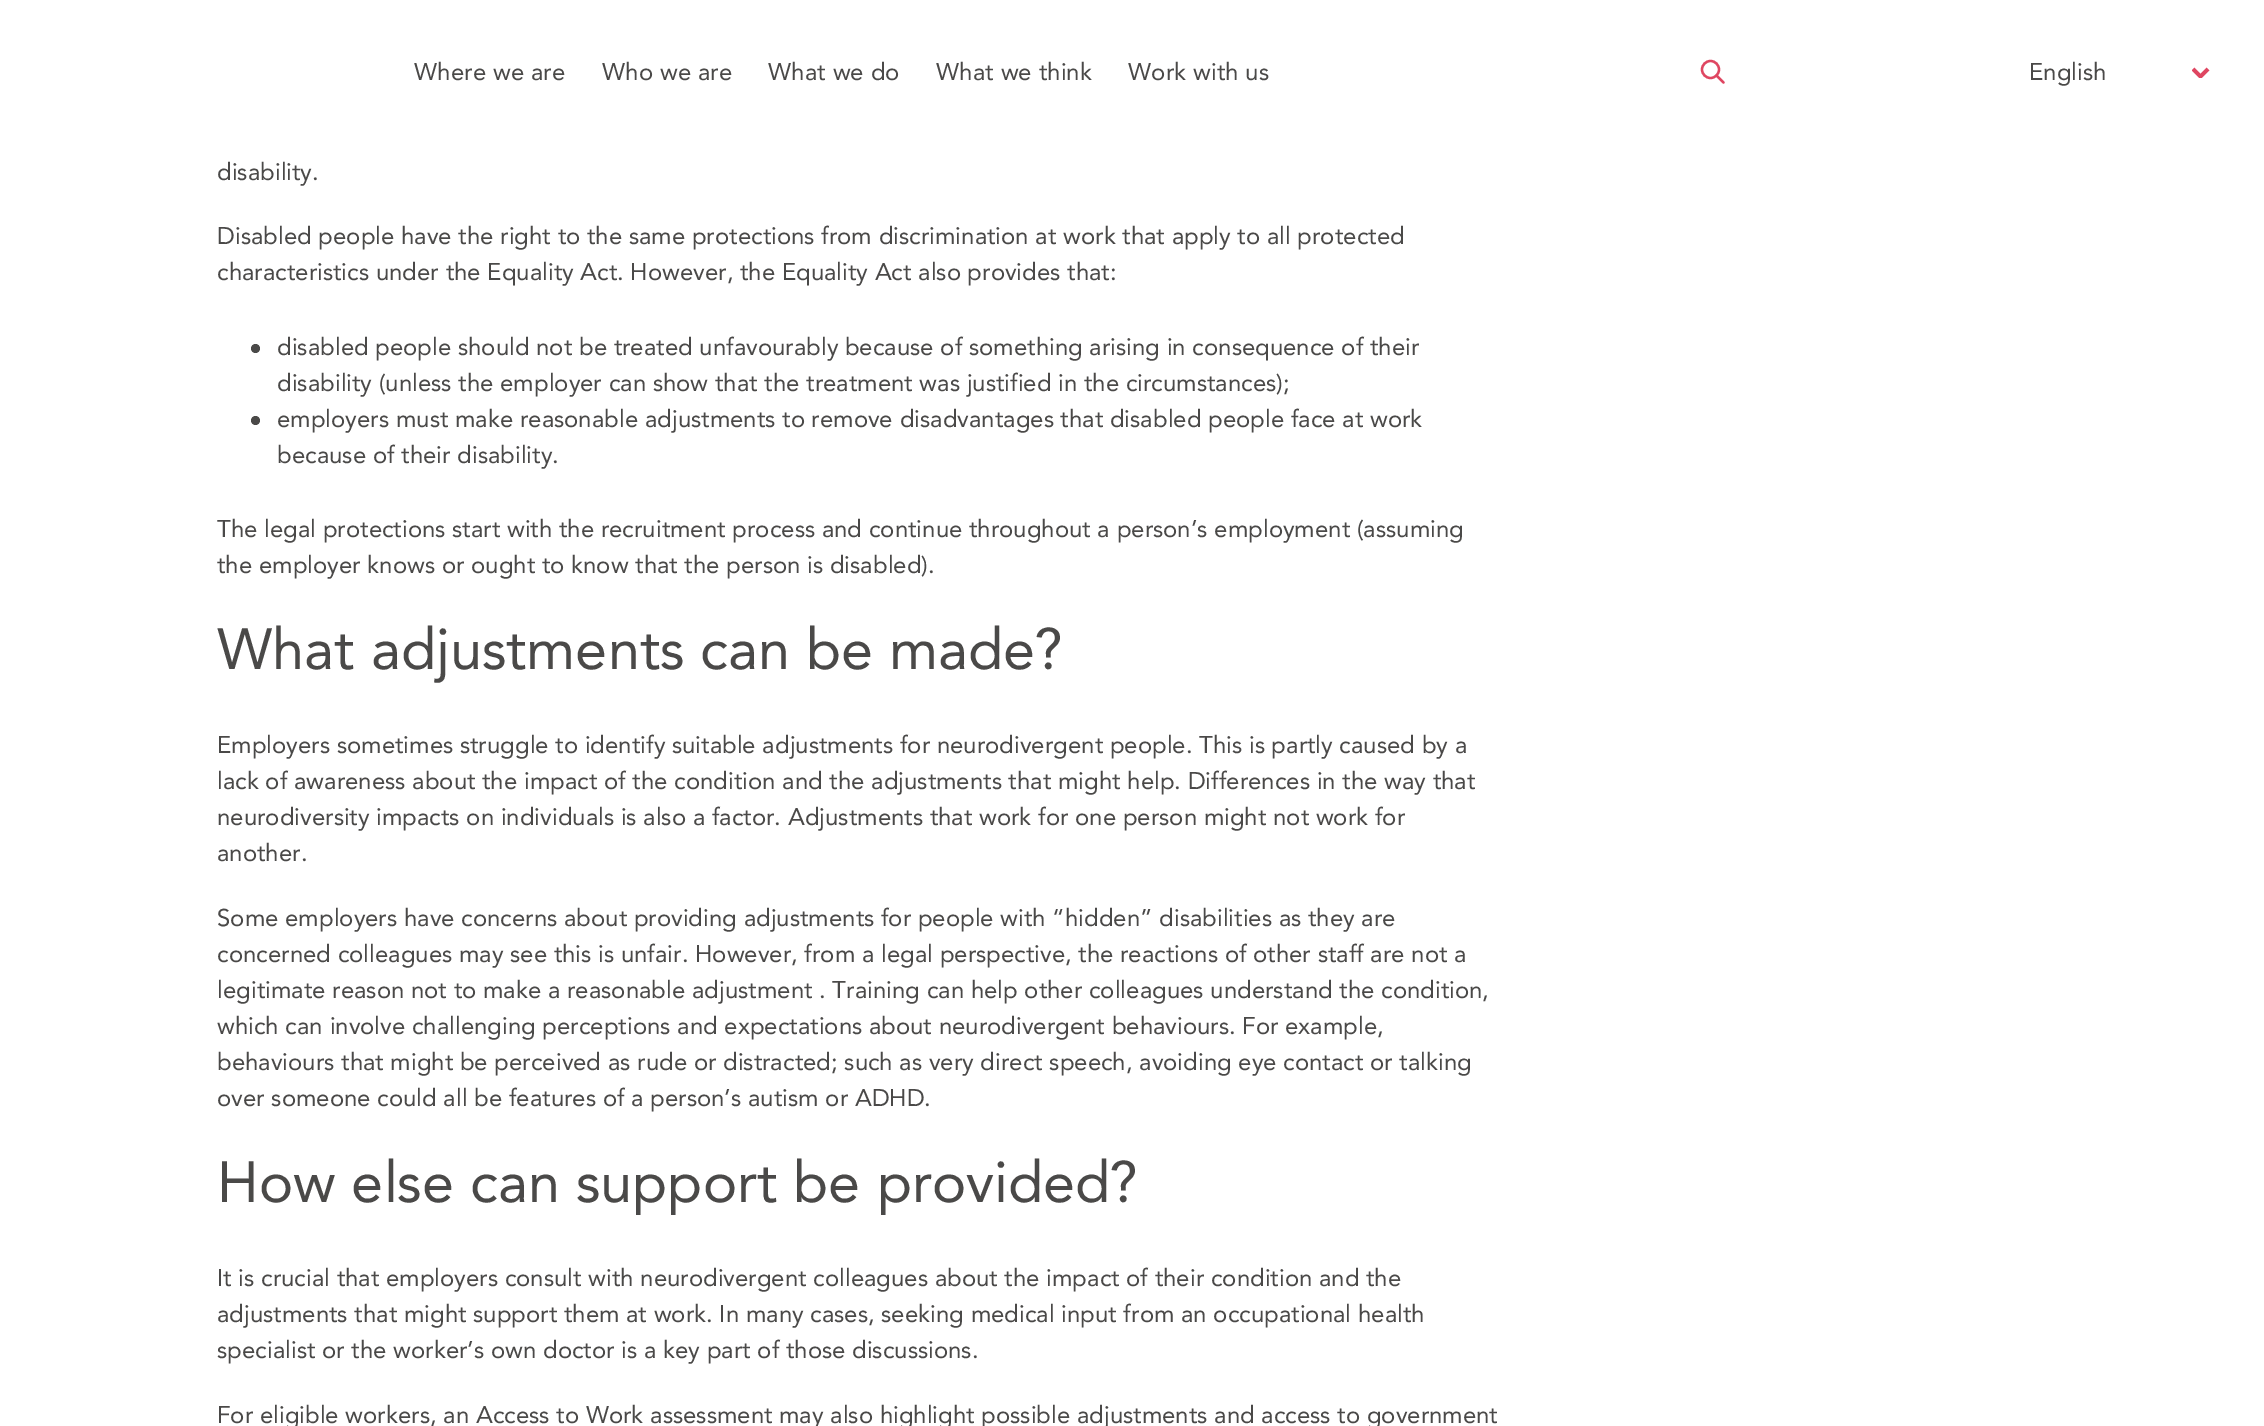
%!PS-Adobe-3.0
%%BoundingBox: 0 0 2264 1426
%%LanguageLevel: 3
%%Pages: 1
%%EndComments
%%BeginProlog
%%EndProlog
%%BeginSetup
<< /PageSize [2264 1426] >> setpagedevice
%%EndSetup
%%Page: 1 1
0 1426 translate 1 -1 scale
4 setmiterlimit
1 setgray
0 0 2264 1426 rectfill
0.875 0.275 0.38 setrgbcolor
2.3 setlinewidth
newpath 1710.5 69.5 8.5 0 360 arc closepath stroke
1 setlinecap
1 setlinejoin
newpath 1723.5 82.5 moveto 1716.5 75.5 lineto stroke
gsave
2192 66 18 12 rectclip
3.7 setlinewidth
0 setlinecap
0 setlinejoin
newpath 2193 69 moveto 2200.5 76.5 lineto 2208 69 lineto stroke
grestore
0.29 0.286 0.282 setrgbcolor
newpath 255.5 348.5 4.5 0 360 arc closepath fill
newpath 255.5 420.5 4.5 0 360 arc closepath fill
/Avenir-Regular [24 0 0 -24 0 0] selectfont
414 80 moveto 0.1 0 (Where we are) ashow
602 80 moveto 0.1 0 (Who we are) ashow
768 80 moveto 0.1 0 (What we do) ashow
936 80 moveto 0.1 0 (What we think) ashow
1128 80 moveto 0.1 0 (Work with us) ashow
2029 80 moveto (English) show
217 180 moveto (disability.) show
217 244 moveto (Disabled people have the right to the same protections from discrimination at work that apply to all protected) show
217 280 moveto (characteristics under the Equality Act. However, the Equality Act also provides that:) show
277 355 moveto (disabled people should not be treated unfavourably because of something arising in consequence of their) show
277 391 moveto (disability \(unless the employer can show that the treatment was justified in the circumstances\);) show
277 427 moveto (employers must make reasonable adjustments to remove disadvantages that disabled people face at work) show
277 463 moveto (because of their disability.) show
217 537 moveto (The legal protections start with the recruitment process and continue throughout a person’s employment \(assuming) show
217 573 moveto (the employer knows or ought to know that the person is disabled\).) show
/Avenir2-Regular [57.6 0 0 -57.6 0 0] selectfont
217 669 moveto (What adjustments can be made?) show
/Avenir-Regular [24 0 0 -24 0 0] selectfont
217 753 moveto (Employers sometimes struggle to identify suitable adjustments for neurodivergent people. This is partly caused by a) show
217 789 moveto (lack of awareness about the impact of the condition and the adjustments that might help. Differences in the way that) show
217 825 moveto (neurodiversity impacts on individuals is also a factor. Adjustments that work for one person might not work for) show
217 861 moveto (another.) show
217 926 moveto (Some employers have concerns about providing adjustments for people with “hidden” disabilities as they are) show
217 962 moveto (concerned colleagues may see this is unfair. However, from a legal perspective, the reactions of other staff are not a) show
217 998 moveto (legitimate reason not to make a reasonable adjustment . Training can help other colleagues understand the condition,) show
217 1034 moveto (which can involve challenging perceptions and expectations about neurodivergent behaviours. For example,) show
217 1070 moveto (behaviours that might be perceived as rude or distracted; such as very direct speech, avoiding eye contact or talking) show
217 1106 moveto (over someone could all be features of a person’s autism or ADHD.) show
/Avenir2-Regular [57.6 0 0 -57.6 0 0] selectfont
217 1202 moveto (How else can support be provided?) show
/Avenir-Regular [24 0 0 -24 0 0] selectfont
217 1286 moveto (It is crucial that employers consult with neurodivergent colleagues about the impact of their condition and the) show
217 1322 moveto (adjustments that might support them at work. In many cases, seeking medical input from an occupational health) show
217 1358 moveto (specialist or the worker’s own doctor is a key part of those discussions.) show
217 1423 moveto (For eligible workers, an Access to Work assessment may also highlight possible adjustments and access to government) show
showpage
%%EOF
